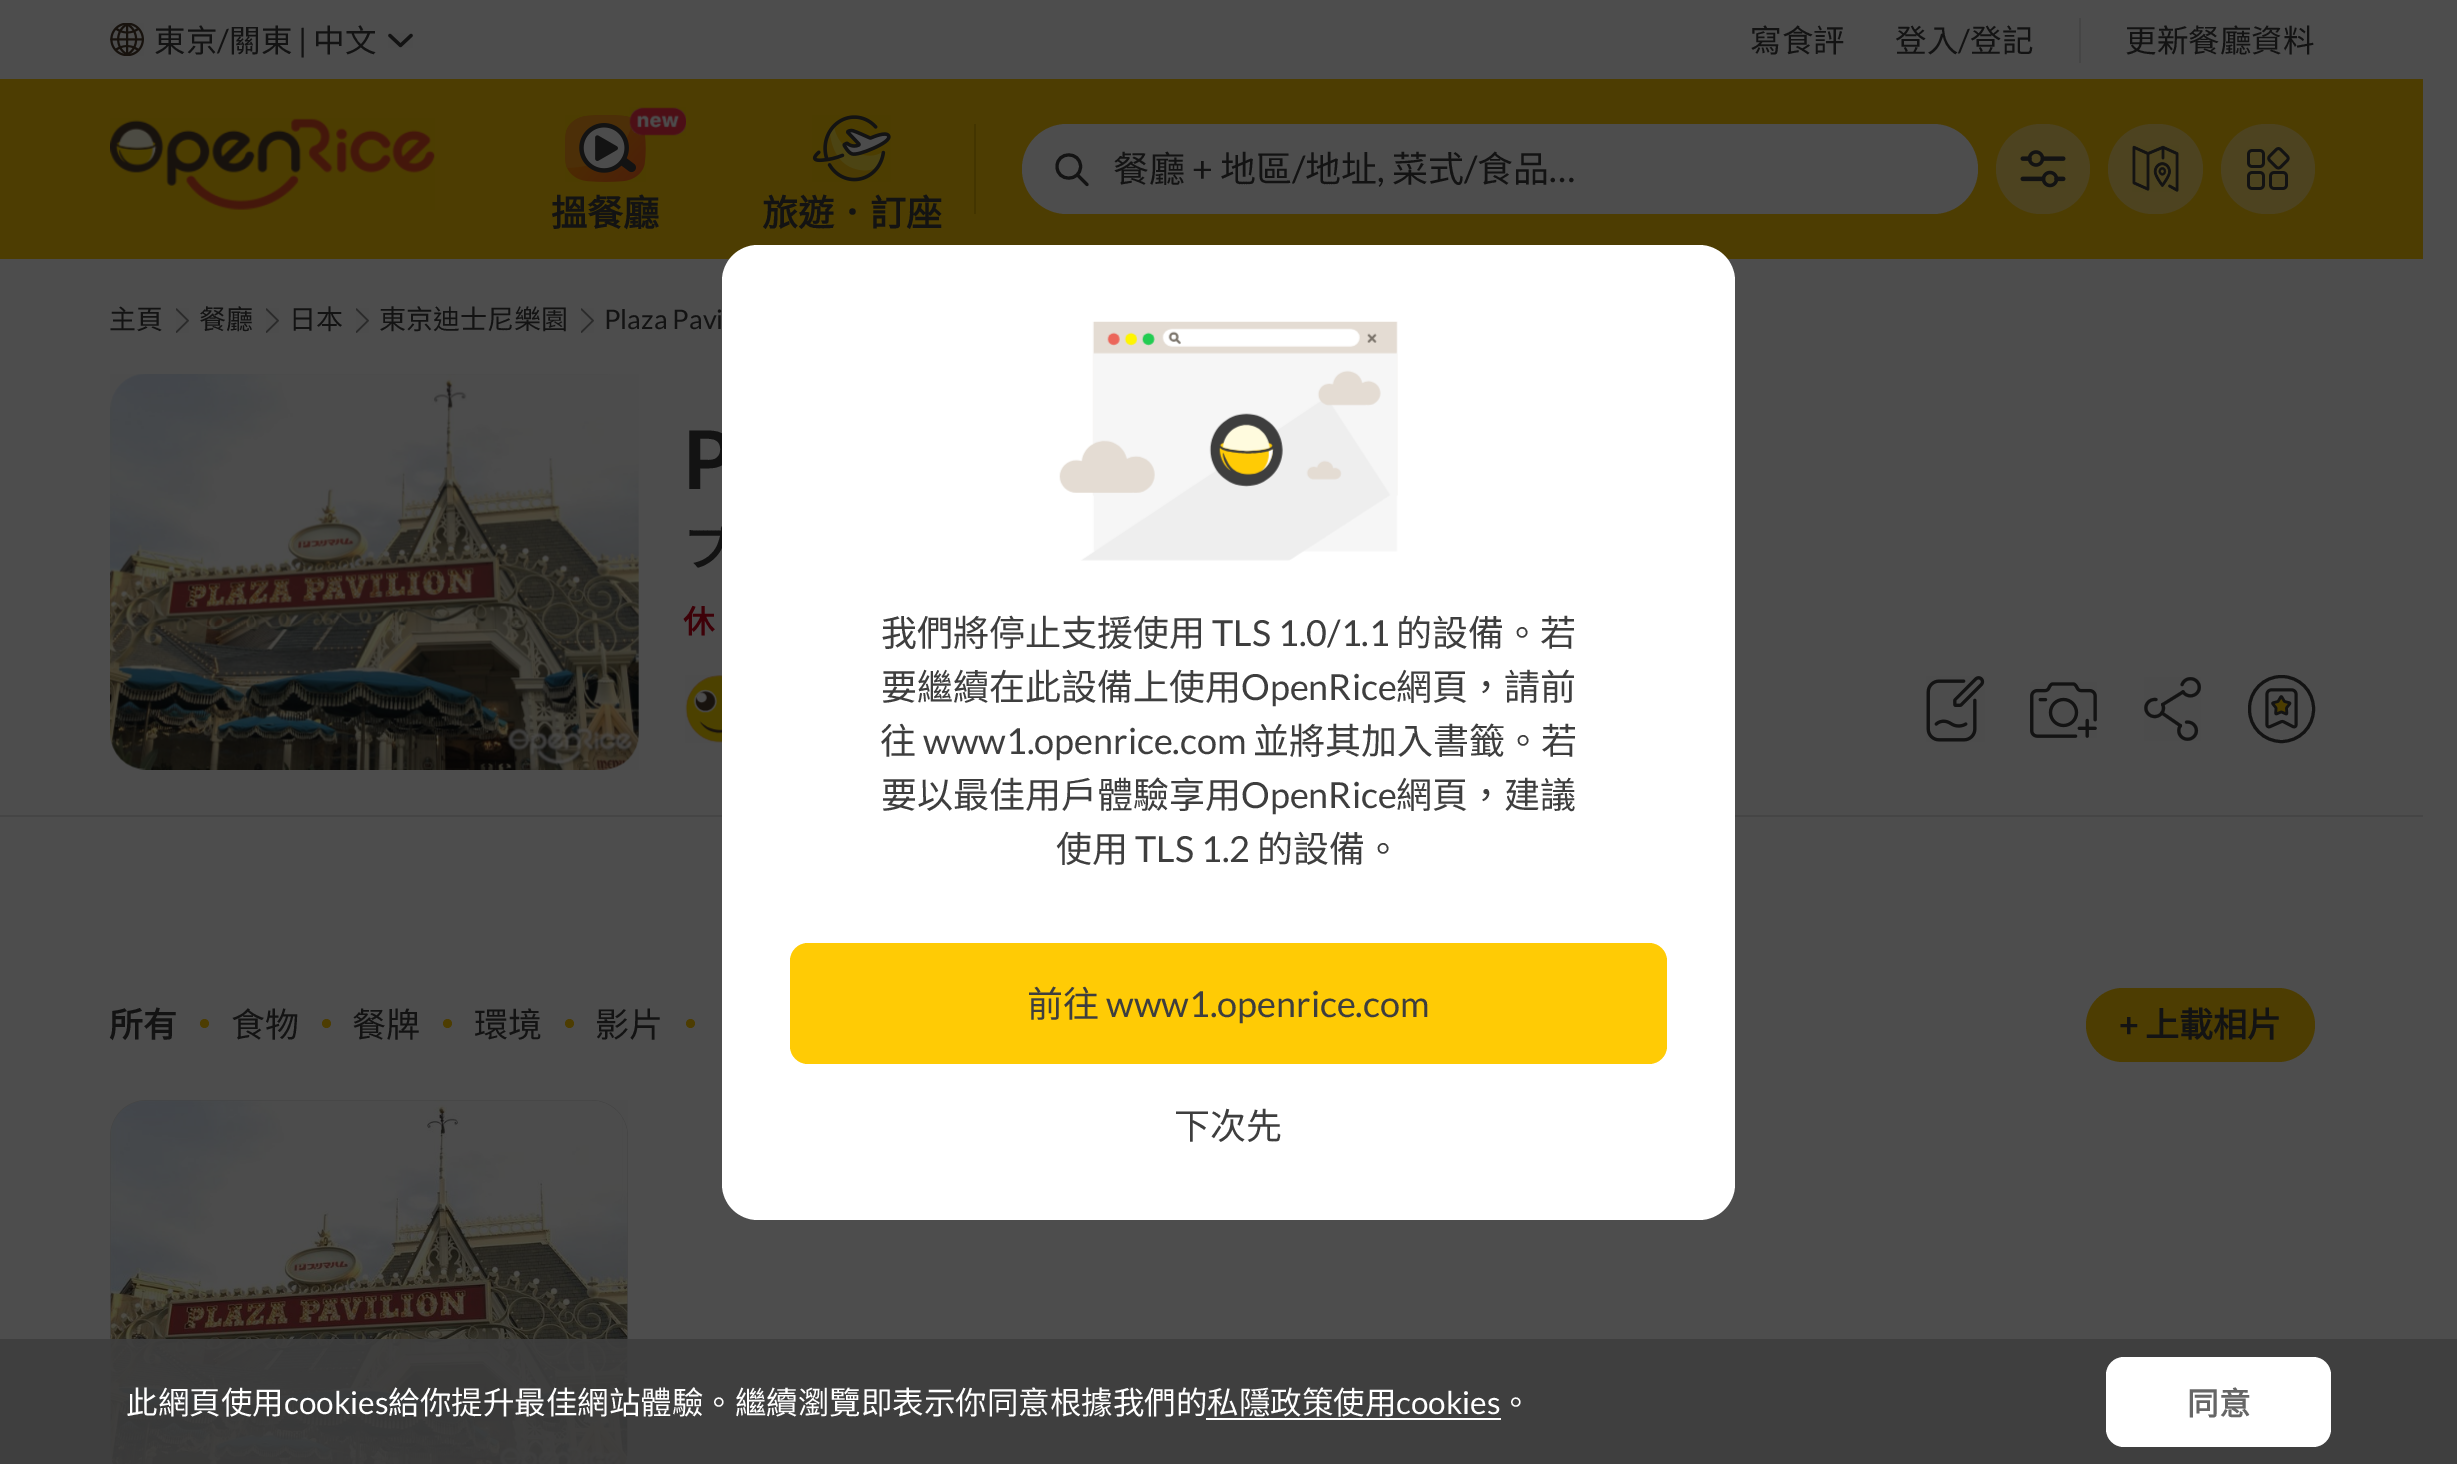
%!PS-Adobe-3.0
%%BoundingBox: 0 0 2457 1464
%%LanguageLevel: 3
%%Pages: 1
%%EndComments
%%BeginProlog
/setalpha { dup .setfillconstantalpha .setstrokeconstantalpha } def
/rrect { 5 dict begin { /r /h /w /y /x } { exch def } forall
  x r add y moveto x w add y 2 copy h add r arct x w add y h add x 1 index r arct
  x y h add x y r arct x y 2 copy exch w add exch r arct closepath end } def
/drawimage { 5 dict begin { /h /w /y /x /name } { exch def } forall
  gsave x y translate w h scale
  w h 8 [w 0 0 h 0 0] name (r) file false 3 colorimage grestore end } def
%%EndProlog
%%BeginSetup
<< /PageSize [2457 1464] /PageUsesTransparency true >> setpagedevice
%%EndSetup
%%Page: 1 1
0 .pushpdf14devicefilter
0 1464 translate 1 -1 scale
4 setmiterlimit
0.302 setgray
0 0 2457 1464 rectfill
(images/1.raw) 110 23 34 33 drawimage
(images/2.raw) 388 33 25 15 drawimage
0.271 setgray
2079 18 2 45 rectfill
0.302 0.239 0.008 setrgbcolor
0 79 2423 180 rectfill
(images/3.raw) 110 118 325 92 drawimage
0.302 setgray
1022 124 956 90 45 rrect fill
0.075 setgray
3.1 setlinewidth
newpath 1080.5 166.5 moveto 1080.5 182 1057 182 1057 166.5 curveto 1057 151 1080.5 151 1080.5 166.5 curveto closepath stroke
1 setlinecap
newpath 1078 175.5 moveto 1087 184.5 lineto stroke
0.302 0.263 0.125 setrgbcolor
1996 124 94 90 45 rrect fill
(images/4.raw) 2020 150 46 38 drawimage
2108 124 95 90 45 rrect fill
(images/5.raw) 2132 145 47 47 drawimage
2221 124 94 90 45 rrect fill
(images/6.raw) 2247 147 43 43 drawimage
(images/7.raw) 565 115 81 67 drawimage
(images/8.raw) 629 107 57 29 drawimage
(images/9.raw) 812 115 79 67 drawimage
0.263 0.208 0 setrgbcolor
974 124 2 90 rectfill
(images/10.raw) 176 308 13 25 drawimage
(images/10.raw) 266 308 13 25 drawimage
(images/10.raw) 356 308 13 25 drawimage
(images/10.raw) 581 308 13 25 drawimage
(images/11.raw) 110 374 529 396 drawimage
(images/12.raw) 685 675 37 68 drawimage
(images/13.raw) 1926 676 59 66 drawimage
(images/14.raw) 2030 682 67 56 drawimage
(images/15.raw) 2144 677 57 64 drawimage
0.075 setgray
3 setlinewidth
0 setlinecap
2249.5 676.5 64 65 32 rrect stroke
(images/16.raw) 2265 688 33 41 drawimage
0.271 setgray
0 815 2423 2 rectfill
0.302 0.239 0.008 setrgbcolor
newpath 204.5 1023.5 4.5 0 360 arc closepath fill
newpath 326.5 1023.5 4.5 0 360 arc closepath fill
newpath 447.5 1023.5 4.5 0 360 arc closepath fill
newpath 569.5 1023.5 4.5 0 360 arc closepath fill
newpath 690.5 1023.5 4.5 0 360 arc closepath fill
2086 988 229 74 37 rrect fill
0.271 setgray
110 1100 518 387 36 rrect fill
(images/17.raw) 110 1100 518 364 drawimage
0.9 setalpha
0.243 setgray
0 1339 2457 125 rectfill
1 setalpha
1 setgray
1206 1418 295 2 rectfill
2106 1357 225 90 18 rrect fill
/NotoSansCJKHK-Regular [31.5 0 0 -31.5 0 0] selectfont
0.075 setgray
154 52 moveto (東京) show
/Lato-Regular [31.5 0 0 -31.5 0 0] selectfont
217 52 moveto (/) show
/NotoSansCJKHK-Regular [31.5 0 0 -31.5 0 0] selectfont
229 52 moveto (關東) show
/Lato-Regular [31.5 0 0 -31.5 0 0] selectfont
298 52 moveto (|) show
/NotoSansCJKHK-Regular [31.5 0 0 -31.5 0 0] selectfont
313 52 moveto (中文) show
1750 52 moveto (寫食評) show
1895 52 moveto (登入) show
/Lato-Regular [31.5 0 0 -31.5 0 0] selectfont
1958 52 moveto (/) show
/NotoSansCJKHK-Regular [31.5 0 0 -31.5 0 0] selectfont
1970 52 moveto (登記) show
2125 52 moveto (更新餐廳資料) show
/NotoSansCJKHK-Regular [36 0 0 -36 0 0] selectfont
1113 182 moveto (餐廳) show
/Lato-Regular [36 0 0 -36 0 0] selectfont
1192 182 moveto (+) show
/NotoSansCJKHK-Regular [36 0 0 -36 0 0] selectfont
1220 182 moveto (地區) show
/Lato-Regular [36 0 0 -36 0 0] selectfont
1292 182 moveto (/) show
/NotoSansCJKHK-Regular [36 0 0 -36 0 0] selectfont
1305 182 moveto (地址) show
1392 182 moveto (菜式) show
/Lato-Regular [36 0 0 -36 0 0] selectfont
1464 182 moveto (/) show
/NotoSansCJKHK-Regular [36 0 0 -36 0 0] selectfont
1477 182 moveto (食品) show
/Lato-Regular [36 0 0 -36 0 0] selectfont
1377 182 moveto (,) show
1549 182 moveto (…) show
/NotoSansCJKHK-Bold [36 0 0 -36 0 0] selectfont
551 226 moveto (搵餐廳) show
762 226 moveto (旅遊．訂座) show
/NotoSansCJKHK-Regular [27 0 0 -27 0 0] selectfont
109 329 moveto (主頁) show
199 329 moveto (餐廳) show
289 329 moveto (日本) show
379 329 moveto (東京迪士尼樂園) show
/Lato-Regular [27 0 0 -27 0 0] selectfont
604 329 moveto (Plaza Pavi) show
/Lato-Bold [81 0 0 -81 0 0] selectfont
683 489 moveto (P) show
/NotoSansCJKHK-Bold [50 0 0 -50 0 0] selectfont
683 566 moveto -2 0 32 (プ) widthshow
/NotoSansCJKHK-Bold [31.5 0 0 -31.5 0 0] selectfont
0.243 0.004 0.031 setrgbcolor
683 633 moveto (休) show
/NotoSansCJKHK-Bold [34 0 0 -34 0 0] selectfont
0.075 setgray
109 1037 moveto (所有) show
/NotoSansCJKHK-Regular [34 0 0 -34 0 0] selectfont
231 1037 moveto (食物) show
352 1037 moveto (餐牌) show
474 1037 moveto (環境) show
595 1037 moveto (影片) show
/Lato-Bold [34 0 0 -34 0 0] selectfont
2119 1037 moveto (+) show
/NotoSansCJKHK-Bold [34 0 0 -34 0 0] selectfont
2145 1037 moveto (上載相片) show
1 setgray
722 245 1013 975 36 rrect fill
(images/18.raw) 1059 321 339 240 drawimage
/NotoSansCJKHK-Regular [36 0 0 -36 0 0] selectfont
0.243 setgray
881 646 moveto (我們將停止支援使用) show
/Lato-Regular [36 0 0 -36 0 0] selectfont
1212 646 moveto (TLS 1.0/1.1) show
/NotoSansCJKHK-Regular [36 0 0 -36 0 0] selectfont
1396 646 moveto (的設備。若) show
881 700 moveto (要繼續在此設備上使用) show
/Lato-Regular [36 0 0 -36 0 0] selectfont
1241 700 moveto (OpenRice) show
/NotoSansCJKHK-Regular [36 0 0 -36 0 0] selectfont
1396 700 moveto (網頁，請前) show
880 754 moveto (往) show
/Lato-Regular [36 0 0 -36 0 0] selectfont
923 754 moveto (www1.openrice.com) show
/NotoSansCJKHK-Regular [36 0 0 -36 0 0] selectfont
1253 754 moveto (並將其加入書籤。若) show
881 808 moveto (要以最佳用戶體驗享用) show
/Lato-Regular [36 0 0 -36 0 0] selectfont
1241 808 moveto (OpenRice) show
/NotoSansCJKHK-Regular [36 0 0 -36 0 0] selectfont
1396 808 moveto (網頁，建議) show
1056 862 moveto (使用) show
/Lato-Regular [36 0 0 -36 0 0] selectfont
1135 862 moveto (TLS 1.2) show
/NotoSansCJKHK-Regular [36 0 0 -36 0 0] selectfont
1257 862 moveto (的設備。) show
1 0.796 0.02 setrgbcolor
790 943 877 121 18 rrect fill
0.243 setgray
1027 1017 moveto (前往) show
/Lato-Regular [36 0 0 -36 0 0] selectfont
1106 1017 moveto (www1.openrice.com) show
/NotoSansCJKHK-Regular [36 0 0 -36 0 0] selectfont
1174 1139 moveto (下次先) show
/NotoSansCJKHK-Regular [31.5 0 0 -31.5 0 0] selectfont
1 setgray
126 1414 moveto (此網頁使用) show
/Lato-Regular [31.5 0 0 -31.5 0 0] selectfont
284 1414 moveto (cookies) show
/NotoSansCJKHK-Regular [31.5 0 0 -31.5 0 0] selectfont
388 1414 moveto (給你提升最佳網站體驗。繼續瀏覽即表示你同意根據我們的私隱政策使用) show
/Lato-Regular [31.5 0 0 -31.5 0 0] selectfont
1396 1414 moveto (cookies) show
/NotoSansCJKHK-Regular [31.5 0 0 -31.5 0 0] selectfont
1500 1414 moveto (。) show
/NotoSansCJKHK-Bold [31.5 0 0 -31.5 0 0] selectfont
0.4 setgray
2187 1415 moveto (同意) show
.poppdf14devicefilter showpage
%%EOF
